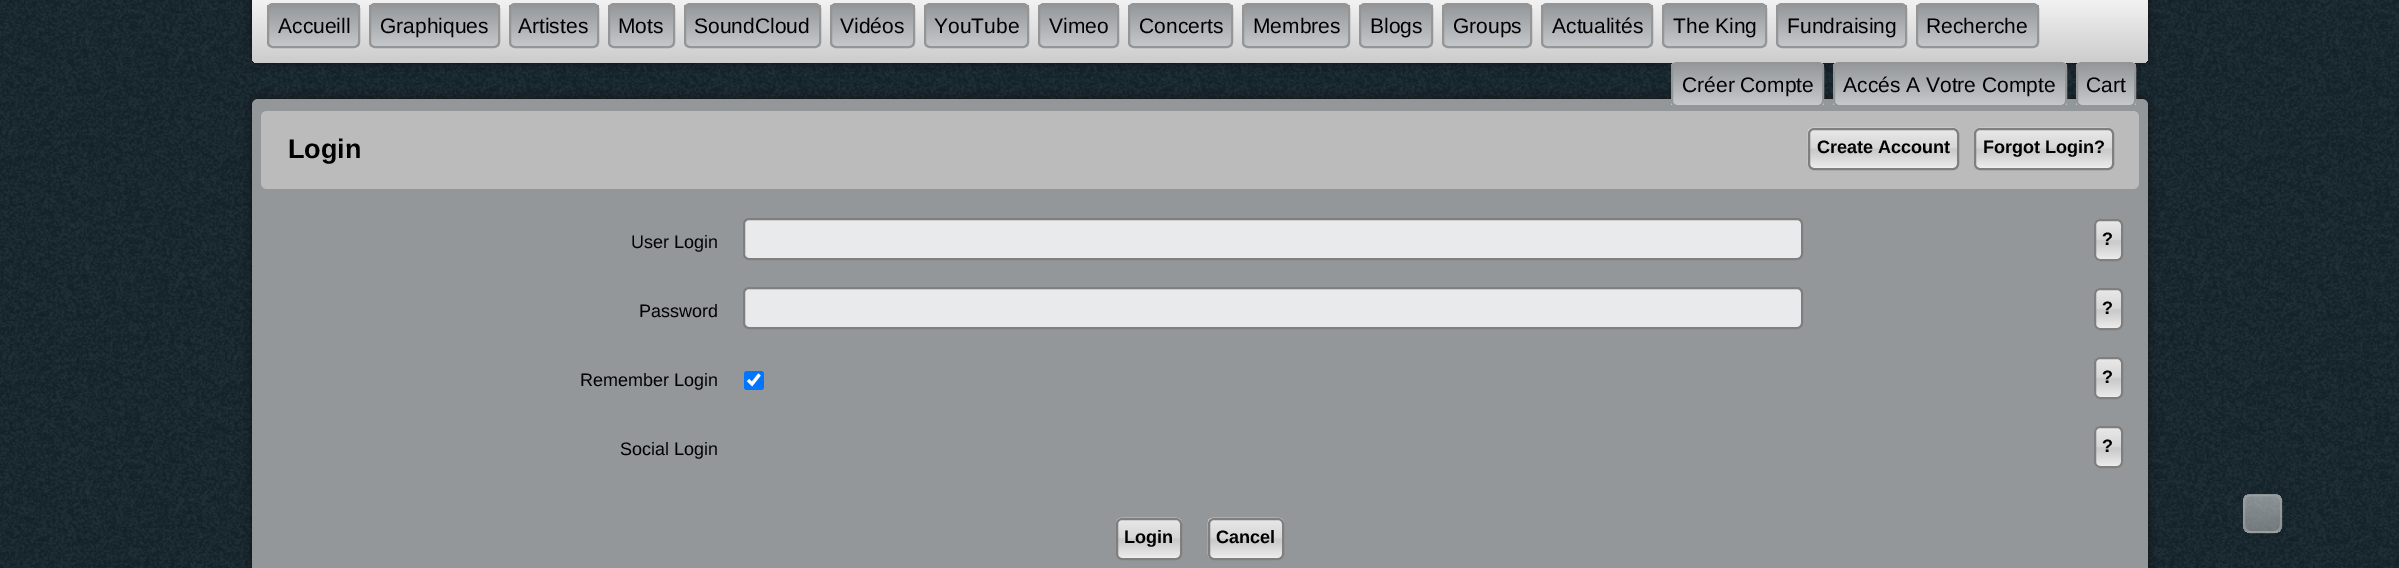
%!PS-Adobe-3.0
%%BoundingBox: 0 0 2399 568
%%LanguageLevel: 3
%%Pages: 1
%%EndComments
%%BeginProlog
/setalpha { dup .setfillconstantalpha .setstrokeconstantalpha } def
/rrect { 5 dict begin { /r /h /w /y /x } { exch def } forall
  x r add y moveto x w add y 2 copy h add r arct x w add y h add x 1 index r arct
  x y h add x y r arct x y 2 copy exch w add exch r arct closepath end } def
/softshadow { 12 dict begin { /a /b /q /h /w /y /x } { exch def } forall gsave /was 0 def
  9 -2 -9 { dup b mul 4 div /e exch def 1 sub .425 mul 2.718 exch exp 1 add a .99 .min exch div /now exch def
    1 1 now sub 1 was sub div sub setalpha /was now def
    w h .min e 2 mul add 0 gt { x e sub y e sub w e 2 mul add h e 2 mul add
      q e add b .6 mul add w h .min 2 div e add .min 0 .max rrect fill } if } for grestore end } def
/drawimage { 5 dict begin { /h /w /y /x /name } { exch def } forall
  gsave x y translate w h scale
  w h 8 [w 0 0 h 0 0] name (r) file false 3 colorimage grestore end } def
%%EndProlog
%%BeginSetup
<< /PageSize [2399 568] /PageUsesTransparency true >> setpagedevice
%%EndSetup
%%Page: 1 1
0 .pushpdf14devicefilter
0 568 translate 1 -1 scale
4 setmiterlimit
0.094 0.161 0.2 setrgbcolor
0 0 2399 568 rectfill
(images/1.raw) 0 0 2399 568 drawimage
0.067 setgray
252 -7 1896 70 6 4 1 softshadow
gsave newpath 252 -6 moveto 2148 -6 lineto 2148 57 lineto 2148 60.5 2145.5 63 2142 63 curveto 258 63 lineto 254.5 63 252 60.5 252 57 curveto closepath clip newpath
<< /ShadingType 2 /ColorSpace /DeviceRGB /Coords [1200 -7.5 1200 63] /Extend [true true] /Function << /FunctionType 2 /Domain [0 1] /C0 [0.965 0.965 0.965] /C1 [0.8 0.8 0.8] /N 1 >> >> shfill grestore
gsave
267 3 93 45 6 rrect clip newpath
gsave newpath 267 5 moveto 360 5 lineto 360 47 lineto 267 47 lineto closepath clip newpath
<< /ShadingType 2 /ColorSpace /DeviceRGB /Coords [314 4.5 314 47] /Extend [true true] /Function << /FunctionType 2 /Domain [0 1] /C0 [0.58 0.592 0.6] /C1 [0.773 0.788 0.8] /N 1 >> >> shfill grestore
grestore
0.584 setgray
2 setlinewidth
268 4 91 43 5 rrect stroke
gsave
369 3 131 45 6 rrect clip newpath
gsave newpath 369 5 moveto 500 5 lineto 500 47 lineto 369 47 lineto closepath clip newpath
<< /ShadingType 2 /ColorSpace /DeviceRGB /Coords [434 4.5 434 47] /Extend [true true] /Function << /FunctionType 2 /Domain [0 1] /C0 [0.58 0.592 0.6] /C1 [0.773 0.788 0.8] /N 1 >> >> shfill grestore
grestore
370 4 129 43 5 rrect stroke
gsave
509 3 90 45 6 rrect clip newpath
gsave newpath 509 5 moveto 599 5 lineto 599 47 lineto 509 47 lineto closepath clip newpath
<< /ShadingType 2 /ColorSpace /DeviceRGB /Coords [554 4.5 554 47] /Extend [true true] /Function << /FunctionType 2 /Domain [0 1] /C0 [0.58 0.592 0.6] /C1 [0.773 0.788 0.8] /N 1 >> >> shfill grestore
grestore
510 4 88 43 5 rrect stroke
gsave
608 3 67 45 6 rrect clip newpath
gsave newpath 608 5 moveto 675 5 lineto 675 47 lineto 608 47 lineto closepath clip newpath
<< /ShadingType 2 /ColorSpace /DeviceRGB /Coords [641 4.5 641 47] /Extend [true true] /Function << /FunctionType 2 /Domain [0 1] /C0 [0.58 0.592 0.6] /C1 [0.773 0.788 0.8] /N 1 >> >> shfill grestore
grestore
609 4 65 43 5 rrect stroke
gsave
684 3 137 45 6 rrect clip newpath
gsave newpath 684 5 moveto 821 5 lineto 821 47 lineto 684 47 lineto closepath clip newpath
<< /ShadingType 2 /ColorSpace /DeviceRGB /Coords [752 4.5 752 47] /Extend [true true] /Function << /FunctionType 2 /Domain [0 1] /C0 [0.58 0.592 0.6] /C1 [0.773 0.788 0.8] /N 1 >> >> shfill grestore
grestore
685 4 135 43 5 rrect stroke
gsave
830 3 85 45 6 rrect clip newpath
gsave newpath 830 5 moveto 915 5 lineto 915 47 lineto 830 47 lineto closepath clip newpath
<< /ShadingType 2 /ColorSpace /DeviceRGB /Coords [872 4.5 872 47] /Extend [true true] /Function << /FunctionType 2 /Domain [0 1] /C0 [0.58 0.592 0.6] /C1 [0.773 0.788 0.8] /N 1 >> >> shfill grestore
grestore
831 4 83 43 5 rrect stroke
gsave
924 3 105 45 6 rrect clip newpath
gsave newpath 924 5 moveto 1029 5 lineto 1029 47 lineto 924 47 lineto closepath clip newpath
<< /ShadingType 2 /ColorSpace /DeviceRGB /Coords [977 4.5 977 47] /Extend [true true] /Function << /FunctionType 2 /Domain [0 1] /C0 [0.58 0.592 0.6] /C1 [0.773 0.788 0.8] /N 1 >> >> shfill grestore
grestore
925 4 103 43 5 rrect stroke
gsave
1038 3 81 45 6 rrect clip newpath
gsave newpath 1038 5 moveto 1119 5 lineto 1119 47 lineto 1038 47 lineto closepath clip newpath
<< /ShadingType 2 /ColorSpace /DeviceRGB /Coords [1079 4.5 1079 47] /Extend [true true] /Function << /FunctionType 2 /Domain [0 1] /C0 [0.58 0.592 0.6] /C1 [0.773 0.788 0.8] /N 1 >> >> shfill grestore
grestore
1039 4 79 43 5 rrect stroke
gsave
1128 3 105 45 6 rrect clip newpath
gsave newpath 1128 5 moveto 1233 5 lineto 1233 47 lineto 1128 47 lineto closepath clip newpath
<< /ShadingType 2 /ColorSpace /DeviceRGB /Coords [1181 4.5 1181 47] /Extend [true true] /Function << /FunctionType 2 /Domain [0 1] /C0 [0.58 0.592 0.6] /C1 [0.773 0.788 0.8] /N 1 >> >> shfill grestore
grestore
1129 4 103 43 5 rrect stroke
gsave
1242 3 108 45 6 rrect clip newpath
gsave newpath 1242 5 moveto 1350 5 lineto 1350 47 lineto 1242 47 lineto closepath clip newpath
<< /ShadingType 2 /ColorSpace /DeviceRGB /Coords [1296 4.5 1296 47] /Extend [true true] /Function << /FunctionType 2 /Domain [0 1] /C0 [0.58 0.592 0.6] /C1 [0.773 0.788 0.8] /N 1 >> >> shfill grestore
grestore
1243 4 106 43 5 rrect stroke
gsave
1359 3 74 45 6 rrect clip newpath
gsave newpath 1359 5 moveto 1433 5 lineto 1433 47 lineto 1359 47 lineto closepath clip newpath
<< /ShadingType 2 /ColorSpace /DeviceRGB /Coords [1396 4.5 1396 47] /Extend [true true] /Function << /FunctionType 2 /Domain [0 1] /C0 [0.58 0.592 0.6] /C1 [0.773 0.788 0.8] /N 1 >> >> shfill grestore
grestore
1360 4 72 43 5 rrect stroke
gsave
1442 3 90 45 6 rrect clip newpath
gsave newpath 1442 5 moveto 1532 5 lineto 1532 47 lineto 1442 47 lineto closepath clip newpath
<< /ShadingType 2 /ColorSpace /DeviceRGB /Coords [1487 4.5 1487 47] /Extend [true true] /Function << /FunctionType 2 /Domain [0 1] /C0 [0.58 0.592 0.6] /C1 [0.773 0.788 0.8] /N 1 >> >> shfill grestore
grestore
1443 4 88 43 5 rrect stroke
gsave
1541 3 112 45 6 rrect clip newpath
gsave newpath 1541 5 moveto 1653 5 lineto 1653 47 lineto 1541 47 lineto closepath clip newpath
<< /ShadingType 2 /ColorSpace /DeviceRGB /Coords [1597 4.5 1597 47] /Extend [true true] /Function << /FunctionType 2 /Domain [0 1] /C0 [0.58 0.592 0.6] /C1 [0.773 0.788 0.8] /N 1 >> >> shfill grestore
grestore
1542 4 110 43 5 rrect stroke
gsave
1662 3 105 45 6 rrect clip newpath
gsave newpath 1662 5 moveto 1767 5 lineto 1767 47 lineto 1662 47 lineto closepath clip newpath
<< /ShadingType 2 /ColorSpace /DeviceRGB /Coords [1715 4.5 1715 47] /Extend [true true] /Function << /FunctionType 2 /Domain [0 1] /C0 [0.58 0.592 0.6] /C1 [0.773 0.788 0.8] /N 1 >> >> shfill grestore
grestore
1663 4 103 43 5 rrect stroke
gsave
1776 3 131 45 6 rrect clip newpath
gsave newpath 1776 5 moveto 1907 5 lineto 1907 47 lineto 1776 47 lineto closepath clip newpath
<< /ShadingType 2 /ColorSpace /DeviceRGB /Coords [1841 4.5 1841 47] /Extend [true true] /Function << /FunctionType 2 /Domain [0 1] /C0 [0.58 0.592 0.6] /C1 [0.773 0.788 0.8] /N 1 >> >> shfill grestore
grestore
1777 4 129 43 5 rrect stroke
gsave
1916 3 123 45 6 rrect clip newpath
gsave newpath 1916 5 moveto 2039 5 lineto 2039 47 lineto 1916 47 lineto closepath clip newpath
<< /ShadingType 2 /ColorSpace /DeviceRGB /Coords [1977 4.5 1977 47] /Extend [true true] /Function << /FunctionType 2 /Domain [0 1] /C0 [0.58 0.592 0.6] /C1 [0.773 0.788 0.8] /N 1 >> >> shfill grestore
grestore
1917 4 121 43 5 rrect stroke
0.067 setgray
252 99 1896 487 6 4 1 softshadow
0.58 0.592 0.6 setrgbcolor
252 99 1896 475 6 rrect fill
gsave
1671 62 153 45 6 rrect clip newpath
gsave newpath 1671 63 moveto 1824 63 lineto 1824 105 lineto 1671 105 lineto closepath clip newpath
<< /ShadingType 2 /ColorSpace /DeviceRGB /Coords [1748 63 1748 105] /Extend [true true] /Function << /FunctionType 2 /Domain [0 1] /C0 [0.58 0.592 0.6] /C1 [0.773 0.788 0.8] /N 1 >> >> shfill grestore
grestore
0.584 setgray
1672 63 151 43 5 rrect stroke
gsave
1833 62 234 45 6 rrect clip newpath
gsave newpath 1833 63 moveto 2067 63 lineto 2067 105 lineto 1833 105 lineto closepath clip newpath
<< /ShadingType 2 /ColorSpace /DeviceRGB /Coords [1950 63 1950 105] /Extend [true true] /Function << /FunctionType 2 /Domain [0 1] /C0 [0.58 0.592 0.6] /C1 [0.773 0.788 0.8] /N 1 >> >> shfill grestore
grestore
1834 63 232 43 5 rrect stroke
gsave
2076 62 60 45 6 rrect clip newpath
gsave newpath 2076 63 moveto 2136 63 lineto 2136 105 lineto 2076 105 lineto closepath clip newpath
<< /ShadingType 2 /ColorSpace /DeviceRGB /Coords [2106 63 2106 105] /Extend [true true] /Function << /FunctionType 2 /Domain [0 1] /C0 [0.58 0.592 0.6] /C1 [0.773 0.788 0.8] /N 1 >> >> shfill grestore
grestore
2077 63 58 43 5 rrect stroke
0.733 setgray
newpath 267 111 moveto 755 111 lineto 755 189 lineto 267 189 lineto 263.5 189 261 186.5 261 183 curveto 261 117 lineto 261 113.5 263.5 111 267 111 curveto closepath fill
newpath 755 111 moveto 2133 111 lineto 2136.5 111 2139 113.5 2139 117 curveto 2139 183 lineto 2139 186.5 2136.5 189 2133 189 curveto 755 189 lineto closepath fill
(images/2.raw) 1807 127 152 43 drawimage
0.498 setgray
1809 129 149 40 5 rrect stroke
(images/3.raw) 1974 127 140 43 drawimage
1975 129 138 40 5 rrect stroke
0.91 0.918 0.922 setrgbcolor
744 219 1058 40 5 rrect gsave fill grestore
0.498 setgray
stroke
(images/4.raw) 2094 219 29 42 drawimage
2095 220 27 40 5 rrect stroke
0.91 0.918 0.922 setrgbcolor
744 288 1058 40 5 rrect gsave fill grestore
0.498 setgray
stroke
(images/5.raw) 2094 288 29 42 drawimage
2095 289 27 40 5 rrect stroke
0 0.459 1 setrgbcolor
744 371 20 19 3 rrect fill
1 setgray
3.1 setlinewidth
newpath 748 380 moveto 752 384 lineto 759.5 374.5 lineto stroke
(images/5.raw) 2094 357 29 42 drawimage
0.498 setgray
2 setlinewidth
2095 358 27 40 5 rrect stroke
(images/5.raw) 2094 426 29 42 drawimage
2095 427 27 40 5 rrect stroke
(images/6.raw) 1116 517 66 43 drawimage
1117 519 64 40 5 rrect stroke
(images/7.raw) 1207 517 77 43 drawimage
1209 519 74 40 5 rrect stroke
gsave
2243 494 39 39 8 rrect clip newpath
0.5 setalpha
gsave newpath 2243 494 moveto 2282 494 lineto 2282 495 lineto 2243 495 lineto closepath clip newpath
<< /ShadingType 2 /ColorSpace /DeviceRGB /Coords [2244 459 2244 495] /Extend [true true] /Function << /FunctionType 2 /Domain [0 1] /C0 [1 1 1] /C1 [0.8 0.8 0.8] /N 1 >> >> shfill grestore
gsave newpath 2243 495 moveto 2282 495 lineto 2282 531 lineto 2243 531 lineto closepath clip newpath
<< /ShadingType 2 /ColorSpace /DeviceRGB /Coords [2244 495 2244 531] /Extend [true true] /Function << /FunctionType 2 /Domain [0 1] /C0 [1 1 1] /C1 [0.8 0.8 0.8] /N 1 >> >> shfill grestore
gsave newpath 2243 531 moveto 2282 531 lineto 2282 533 lineto 2243 533 lineto closepath clip newpath
<< /ShadingType 2 /ColorSpace /DeviceRGB /Coords [2244 531 2244 567] /Extend [true true] /Function << /FunctionType 2 /Domain [0 1] /C0 [1 1 1] /C1 [0.8 0.8 0.8] /N 1 >> >> shfill grestore
grestore
0.5 setalpha
0.667 setgray
2244 495 37 37 7 rrect stroke
/LiberationSans-Regular [21 0 0 -21 0 0] selectfont
1 setalpha
0 setgray
278 33 moveto (Accueill) show
380 33 moveto (Graphiques) show
518 33 moveto (Artistes) show
618 33 moveto (Mots) show
694 33 moveto (SoundCloud) show
840 33 moveto (Vidéos) show
934 33 moveto (YouTube) show
1049 33 moveto (Vimeo) show
1139 33 moveto (Concerts) show
1253 33 moveto (Membres) show
1370 33 moveto (Blogs) show
1453 33 moveto (Groups) show
1552 33 moveto (Actualités) show
1673 33 moveto (The King) show
1787 33 moveto (Fundraising) show
1926 33 moveto (Recherche) show
1682 92 moveto (Créer Compte) show
1843 92 moveto (Accés A Votre Compte) show
2086 92 moveto (Cart) show
/LiberationSans-Bold [27 0 0 -27 0 0] selectfont
288 158 moveto (Login) show
/LiberationSans-Bold [18 0 0 -18 0 0] selectfont
1817 153 moveto (Create Account) show
1983 153 moveto (Forgot Login?) show
/LiberationSans-Regular [18 0 0 -18 0 0] selectfont
631 248 moveto (User Login) show
/LiberationSans-Bold [18 0 0 -18 0 0] selectfont
2102 245 moveto (?) show
/LiberationSans-Regular [18 0 0 -18 0 0] selectfont
639 317 moveto (Password) show
/LiberationSans-Bold [18 0 0 -18 0 0] selectfont
2102 314 moveto (?) show
/LiberationSans-Regular [18 0 0 -18 0 0] selectfont
580 386 moveto (Remember Login) show
/LiberationSans-Bold [18 0 0 -18 0 0] selectfont
2102 383 moveto (?) show
/LiberationSans-Regular [18 0 0 -18 0 0] selectfont
620 455 moveto (Social Login) show
/LiberationSans-Bold [18 0 0 -18 0 0] selectfont
2102 452 moveto (?) show
1124 543 moveto (Login) show
1216 543 moveto (Cancel) show
.poppdf14devicefilter showpage
%%EOF
